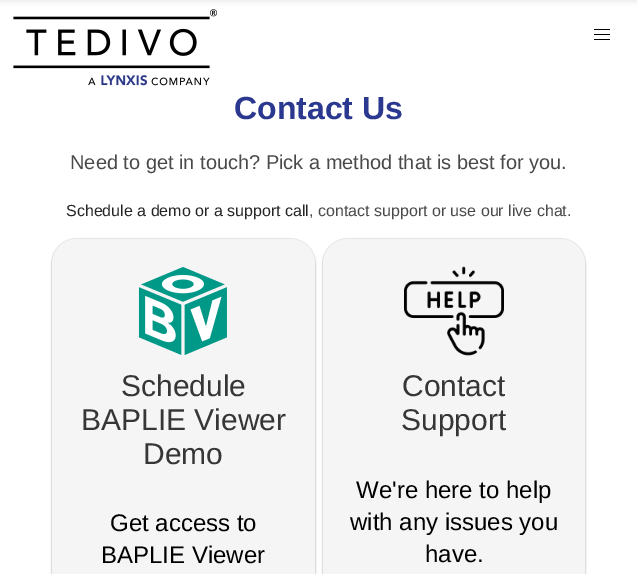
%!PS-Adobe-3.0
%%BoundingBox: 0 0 637 574
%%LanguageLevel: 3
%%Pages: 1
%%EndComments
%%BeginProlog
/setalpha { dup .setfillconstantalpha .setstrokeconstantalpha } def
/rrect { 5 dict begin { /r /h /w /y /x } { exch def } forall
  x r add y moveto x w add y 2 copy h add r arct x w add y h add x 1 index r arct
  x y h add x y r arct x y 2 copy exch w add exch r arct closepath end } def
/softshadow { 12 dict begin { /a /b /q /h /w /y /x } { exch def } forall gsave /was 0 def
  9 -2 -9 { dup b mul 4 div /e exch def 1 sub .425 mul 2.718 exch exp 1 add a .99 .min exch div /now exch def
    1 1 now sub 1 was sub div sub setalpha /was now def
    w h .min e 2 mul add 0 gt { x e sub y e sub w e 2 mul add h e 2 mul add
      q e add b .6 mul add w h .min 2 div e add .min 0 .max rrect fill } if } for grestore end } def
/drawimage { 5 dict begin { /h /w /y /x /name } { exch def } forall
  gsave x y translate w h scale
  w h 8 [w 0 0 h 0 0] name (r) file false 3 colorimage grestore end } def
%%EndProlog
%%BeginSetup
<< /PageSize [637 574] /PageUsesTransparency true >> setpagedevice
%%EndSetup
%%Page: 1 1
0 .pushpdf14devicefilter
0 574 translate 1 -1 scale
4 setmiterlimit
1 setgray
0 0 637 574 rectfill
(images/1.raw) 13 9 205 77 drawimage
0 setgray
0 -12 637 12 0 4 0.12 softshadow
594 29 16 1 rectfill
594 34 16 1 rectfill
594 39 16 1 rectfill
0.906 setgray
51.5 238.5 264 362 25.5 rrect stroke
0.039 setgray
52 241 263 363 25 1.5 0.1 softshadow
0.961 setgray
52 239 263 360 25 rrect fill
(images/2.raw) 138 267 89 88 drawimage
0.906 setgray
322.5 238.5 263 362 25.5 rrect stroke
0.039 setgray
323 241 262 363 25 1.5 0.1 softshadow
0.961 setgray
323 239 262 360 25 rrect fill
(images/3.raw) 404 266 100 90 drawimage
/LiberationSans-Bold [32 0 0 -32 0 0] selectfont
0.169 0.22 0.561 setrgbcolor
234 119 moveto (Contact Us) show
/LiberationSans-Regular [20 0 0 -20 0 0] selectfont
0.29 setgray
70 169 moveto (Need to get in touch? Pick a method that is best for you.) show
/LiberationSans-Regular [16 0 0 -16 0 0] selectfont
0.145 setgray
66 216 moveto (Schedule a demo or a support call) show
0.29 setgray
309 216 moveto (, contact support or use our live chat.) show
/LiberationSans-Regular [30 0 0 -30 0 0] selectfont
0.212 setgray
121 396 moveto (Schedule) show
81 430 moveto (BAPLIE Viewer) show
143 464 moveto (Demo) show
/LiberationSans-Regular [24 0 0 -24 0 0] selectfont
0 setgray
110 531 moveto (Get access to) show
101 563 moveto (BAPLIE Viewer) show
/LiberationSans-Regular [30 0 0 -30 0 0] selectfont
0.212 setgray
402 396 moveto (Contact) show
401 430 moveto (Support) show
/LiberationSans-Regular [24 0 0 -24 0 0] selectfont
0 setgray
356 498 moveto (We're here to help) show
350 530 moveto (with any issues you) show
425 562 moveto (have.) show
.poppdf14devicefilter showpage
%%EOF
